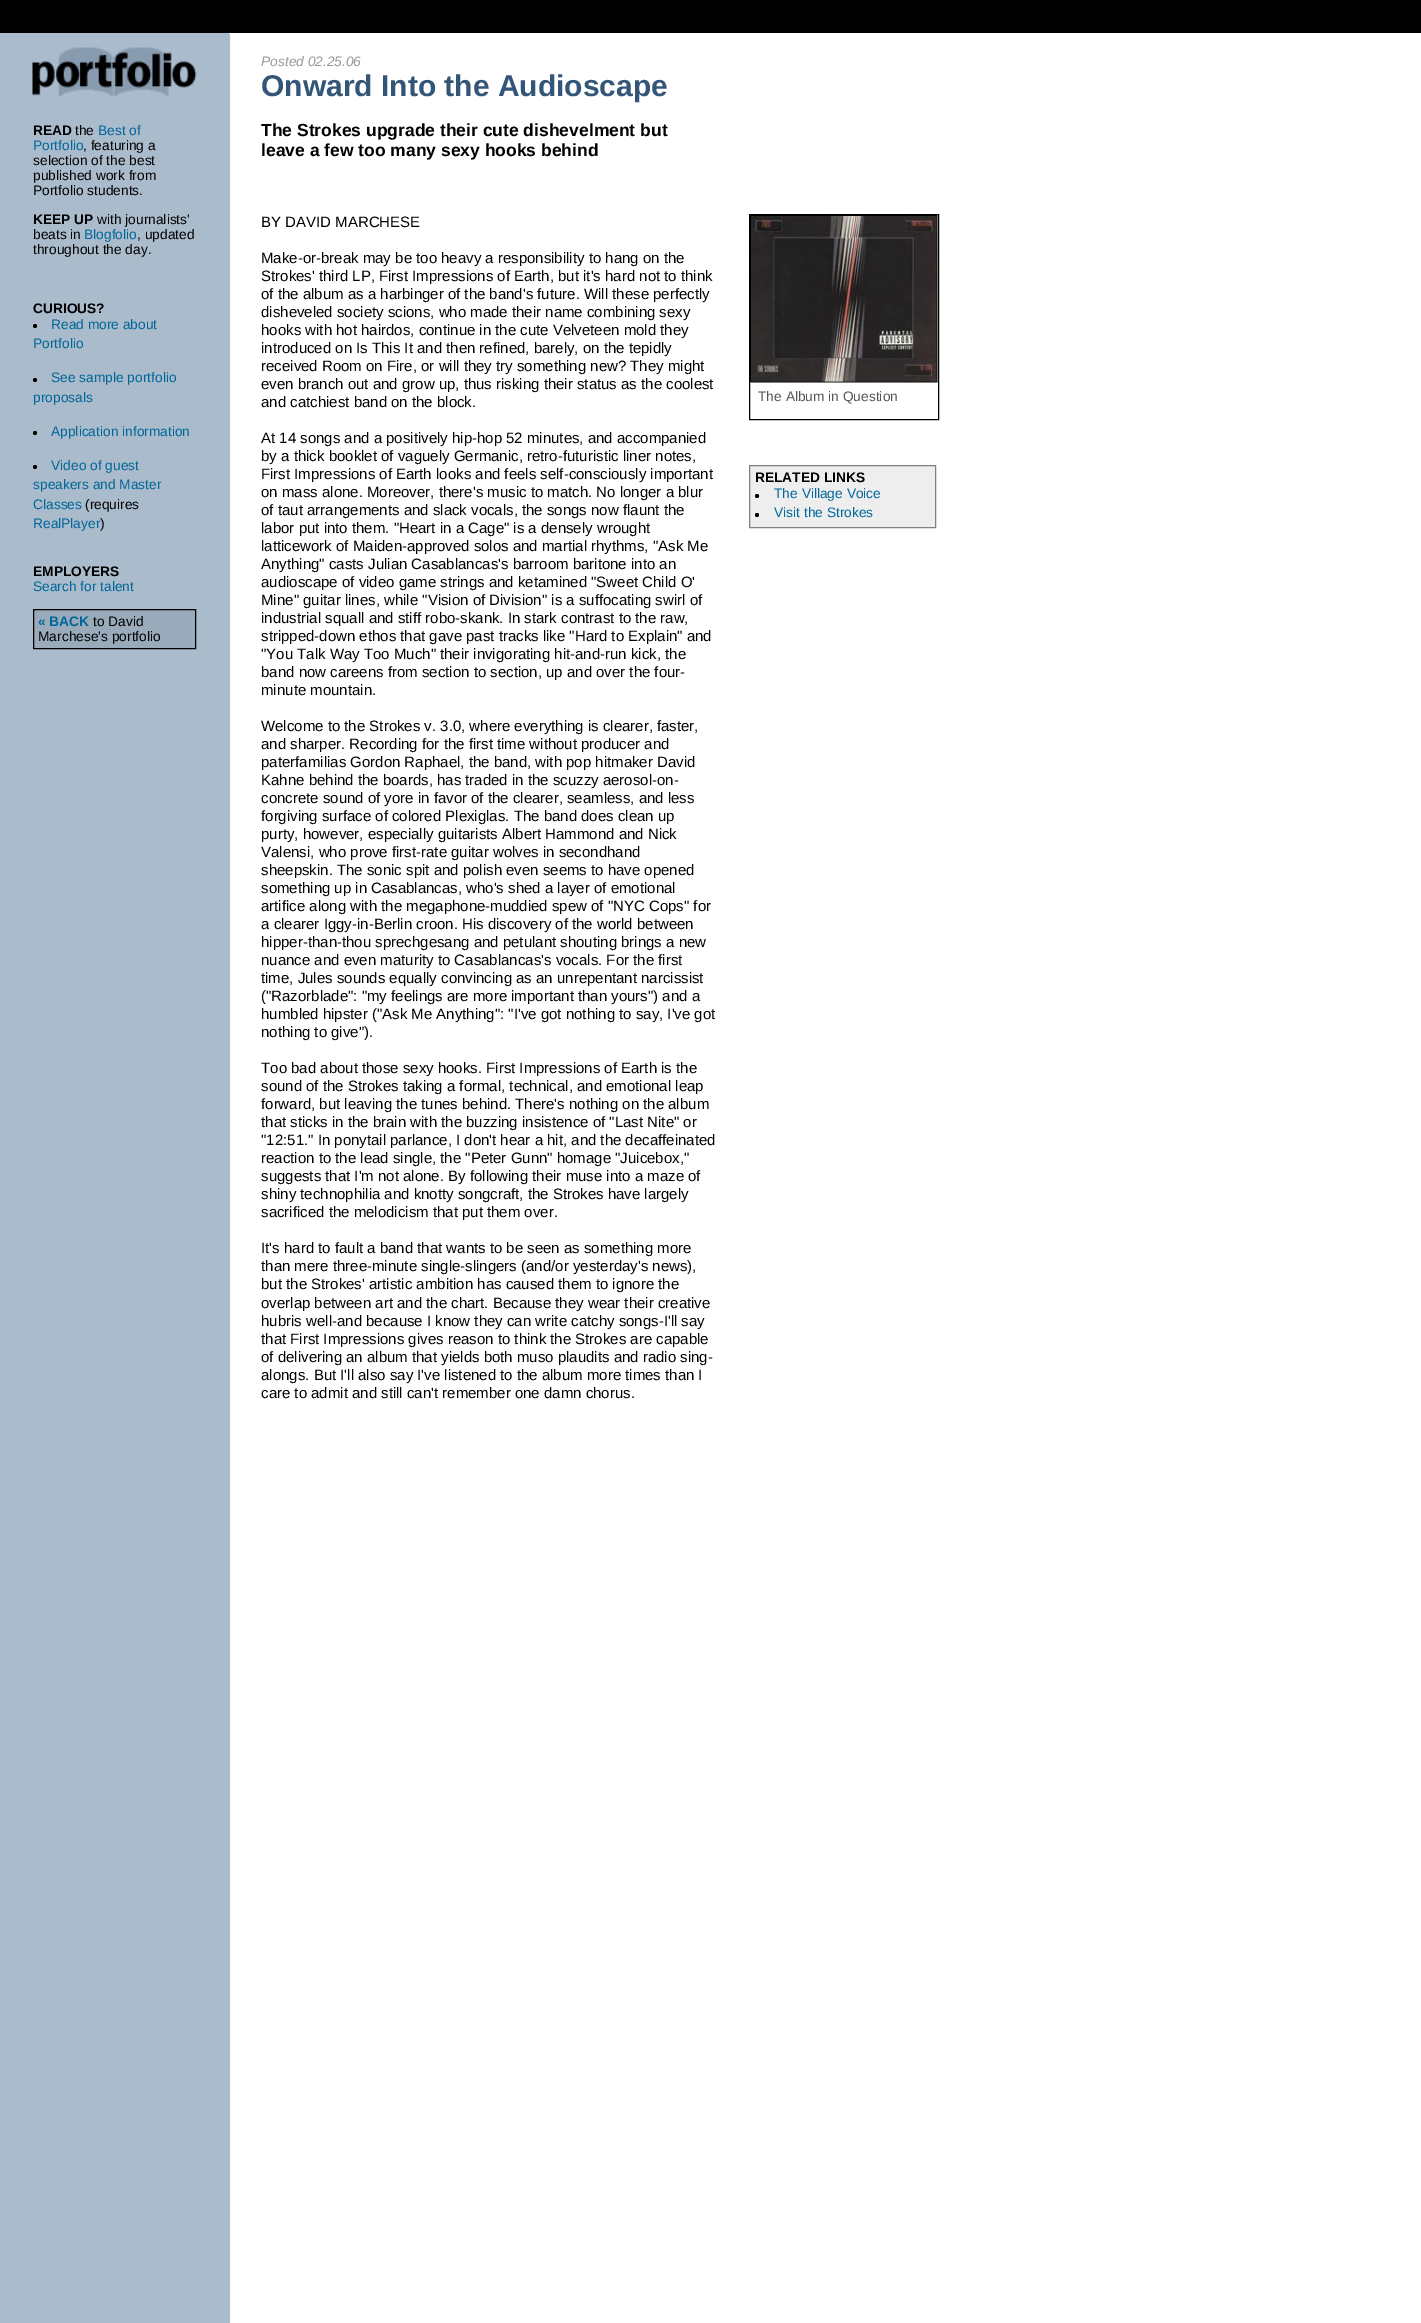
%!PS-Adobe-3.0
%%BoundingBox: 0 0 1421 2323
%%LanguageLevel: 3
%%Pages: 1
%%EndComments
%%BeginProlog
/drawimage { 5 dict begin { /h /w /y /x /name } { exch def } forall
  gsave x y translate w h scale
  w h 8 [w 0 0 h 0 0] name (r) file false 3 colorimage grestore end } def
%%EndProlog
%%BeginSetup
<< /PageSize [1421 2323] >> setpagedevice
%%EndSetup
%%Page: 1 1
0 2323 translate 1 -1 scale
4 setmiterlimit
1 setgray
0 0 1421 2323 rectfill
(images/1.raw) 0 33 231 2290 drawimage
0 setgray
0 0 1421 33 rectfill
1 setgray
229 33 2 1 rectfill
(images/2.raw) 32 47 165 50 drawimage
0 setgray
newpath 35 326 2 0 360 arc closepath fill
newpath 35 380 2 0 360 arc closepath fill
newpath 35 433 2 0 360 arc closepath fill
newpath 35 467 2 0 360 arc closepath fill
0.6 0.667 0.733 setrgbcolor
newpath 33.5 609.5 moveto 195.5 609.5 lineto 195.5 648.5 lineto 33.5 648.5 lineto closepath gsave fill grestore
0 setgray
stroke
749.5 214.5 189 205 rectstroke
(images/3.raw) 750 215 188 168 drawimage
0.933 setgray
newpath 749.5 465.5 moveto 935.5 465.5 lineto 935.5 527.5 lineto 749.5 527.5 lineto closepath gsave fill grestore
0.502 setgray
stroke
0 setgray
newpath 757 496 2 0 360 arc closepath fill
newpath 757 515 2 0 360 arc closepath fill
/LiberationSans-Bold [13.75 0 0 -13.75 0 0] selectfont
33 135 moveto (READ) show
/LiberationSans-Regular [13.75 0 0 -13.75 0 0] selectfont
75 135 moveto (the) show
0 0.4 0.6 setrgbcolor
98 135 moveto (Best of) show
33 150 moveto (Portfolio) show
0 setgray
83 150 moveto (, featuring a) show
33 165 moveto (selection of the best) show
33 180 moveto (published work from) show
33 195 moveto (Portfolio students.) show
/LiberationSans-Bold [13.75 0 0 -13.75 0 0] selectfont
33 224 moveto (KEEP UP) show
/LiberationSans-Regular [13.75 0 0 -13.75 0 0] selectfont
97 224 moveto (with journalists') show
33 239 moveto (beats in) show
0 0.4 0.6 setrgbcolor
84 239 moveto (Blogfolio) show
0 setgray
137 239 moveto (, updated) show
33 254 moveto (throughout the day.) show
/LiberationSans-Bold [13.75 0 0 -13.75 0 0] selectfont
33 313 moveto (CURIOUS?) show
/LiberationSans-Regular [13.75 0 0 -13.75 0 0] selectfont
0 0.4 0.6 setrgbcolor
51 329 moveto (Read more about) show
33 348 moveto (Portfolio) show
51 382 moveto (See sample portfolio) show
33 402 moveto (proposals) show
51 436 moveto (Application information) show
51 470 moveto (Video of guest) show
33 489 moveto (speakers and Master) show
33 509 moveto (Classes) show
0 setgray
85 509 moveto (\(requires) show
0 0.4 0.6 setrgbcolor
33 528 moveto (RealPlayer) show
0 setgray
100 528 moveto (\)) show
/LiberationSans-Bold [13.75 0 0 -13.75 0 0] selectfont
33 576 moveto (EMPLOYERS) show
/LiberationSans-Regular [13.75 0 0 -13.75 0 0] selectfont
0 0.4 0.6 setrgbcolor
33 591 moveto (Search for talent) show
/LiberationSans-Bold [13.75 0 0 -13.75 0 0] selectfont
38 626 moveto (« BACK) show
/LiberationSans-Regular [13.75 0 0 -13.75 0 0] selectfont
0 setgray
93 626 moveto (to David) show
38 641 moveto (Marchese's portfolio) show
/LiberationSans-Italic [13.75 0 0 -13.75 0 0] selectfont
0.6 setgray
261 66 moveto (Posted 02.25.06) show
/LiberationSans-Bold [30 0 0 -30 0 0] selectfont
0.2 0.333 0.467 setrgbcolor
261 96 moveto (Onward Into the Audioscape) show
/LiberationSans-Bold [17.5 0 0 -17.5 0 0] selectfont
0 setgray
261 136 moveto (The Strokes upgrade their cute dishevelment but) show
261 156 moveto (leave a few too many sexy hooks behind) show
/LiberationSans-Regular [15 0 0 -15 0 0] selectfont
261 227 moveto (BY DAVID MARCHESE) show
261 263 moveto (Make-or-break may be too heavy a responsibility to hang on the) show
261 281 moveto (Strokes' third LP, First Impressions of Earth, but it's hard not to think) show
261 299 moveto (of the album as a harbinger of the band's future. Will these perfectly) show
261 317 moveto (disheveled society scions, who made their name combining sexy) show
261 335 moveto (hooks with hot hairdos, continue in the cute Velveteen mold they) show
261 353 moveto (introduced on Is This It and then refined, barely, on the tepidly) show
261 371 moveto (received Room on Fire, or will they try something new? They might) show
261 389 moveto (even branch out and grow up, thus risking their status as the coolest) show
261 407 moveto (and catchiest band on the block.) show
261 443 moveto (At 14 songs and a positively hip-hop 52 minutes, and accompanied) show
261 461 moveto (by a thick booklet of vaguely Germanic, retro-futuristic liner notes,) show
261 479 moveto (First Impressions of Earth looks and feels self-consciously important) show
261 497 moveto (on mass alone. Moreover, there's music to match. No longer a blur) show
261 515 moveto (of taut arrangements and slack vocals, the songs now flaunt the) show
261 533 moveto (labor put into them. "Heart in a Cage" is a densely wrought) show
261 551 moveto (latticework of Maiden-approved solos and martial rhythms, "Ask Me) show
261 569 moveto (Anything" casts Julian Casablancas's barroom baritone into an) show
261 587 moveto (audioscape of video game strings and ketamined "Sweet Child O') show
261 605 moveto (Mine" guitar lines, while "Vision of Division" is a suffocating swirl of) show
261 623 moveto (industrial squall and stiff robo-skank. In stark contrast to the raw,) show
261 641 moveto (stripped-down ethos that gave past tracks like "Hard to Explain" and) show
261 659 moveto ("You Talk Way Too Much" their invigorating hit-and-run kick, the) show
261 677 moveto (band now careens from section to section, up and over the four-) show
261 695 moveto (minute mountain.) show
261 731 moveto (Welcome to the Strokes v. 3.0, where everything is clearer, faster,) show
261 749 moveto (and sharper. Recording for the first time without producer and) show
261 767 moveto (paterfamilias Gordon Raphael, the band, with pop hitmaker David) show
261 785 moveto (Kahne behind the boards, has traded in the scuzzy aerosol-on-) show
261 803 moveto (concrete sound of yore in favor of the clearer, seamless, and less) show
261 821 moveto (forgiving surface of colored Plexiglas. The band does clean up) show
261 839 moveto (purty, however, especially guitarists Albert Hammond and Nick) show
261 857 moveto (Valensi, who prove first-rate guitar wolves in secondhand) show
261 875 moveto (sheepskin. The sonic spit and polish even seems to have opened) show
261 893 moveto (something up in Casablancas, who's shed a layer of emotional) show
261 911 moveto (artifice along with the megaphone-muddied spew of "NYC Cops" for) show
261 929 moveto (a clearer Iggy-in-Berlin croon. His discovery of the world between) show
261 947 moveto (hipper-than-thou sprechgesang and petulant shouting brings a new) show
261 965 moveto (nuance and even maturity to Casablancas's vocals. For the first) show
261 983 moveto (time, Jules sounds equally convincing as an unrepentant narcissist) show
261 1001 moveto (\("Razorblade": "my feelings are more important than yours"\) and a) show
261 1019 moveto (humbled hipster \("Ask Me Anything": "I've got nothing to say, I've got) show
261 1037 moveto (nothing to give"\).) show
261 1073 moveto (Too bad about those sexy hooks. First Impressions of Earth is the) show
261 1091 moveto (sound of the Strokes taking a formal, technical, and emotional leap) show
261 1109 moveto (forward, but leaving the tunes behind. There's nothing on the album) show
261 1127 moveto (that sticks in the brain with the buzzing insistence of "Last Nite" or) show
261 1145 moveto ("12:51." In ponytail parlance, I don't hear a hit, and the decaffeinated) show
261 1163 moveto (reaction to the lead single, the "Peter Gunn" homage "Juicebox,") show
261 1181 moveto (suggests that I'm not alone. By following their muse into a maze of) show
261 1199 moveto (shiny technophilia and knotty songcraft, the Strokes have largely) show
261 1217 moveto (sacrificed the melodicism that put them over.) show
261 1253 moveto (It's hard to fault a band that wants to be seen as something more) show
261 1271 moveto (than mere three-minute single-slingers \(and/or yesterday's news\),) show
261 1289 moveto (but the Strokes' artistic ambition has caused them to ignore the) show
261 1308 moveto (overlap between art and the chart. Because they wear their creative) show
261 1326 moveto (hubris well-and because I know they can write catchy songs-I'll say) show
261 1344 moveto (that First Impressions gives reason to think the Strokes are capable) show
261 1362 moveto (of delivering an album that yields both muso plaudits and radio sing-) show
261 1380 moveto (alongs. But I'll also say I've listened to the album more times than I) show
261 1398 moveto (care to admit and still can't remember one damn chorus.) show
/LiberationSans-Regular [13.75 0 0 -13.75 0 0] selectfont
0.333 setgray
758 401 moveto (The Album in Question) show
/LiberationSans-Bold [13.75 0 0 -13.75 0 0] selectfont
0 setgray
755 482 moveto (RELATED LINKS) show
/LiberationSans-Regular [13.75 0 0 -13.75 0 0] selectfont
0 0.4 0.6 setrgbcolor
774 498 moveto (The Village Voice) show
774 517 moveto (Visit the Strokes) show
showpage
%%EOF
